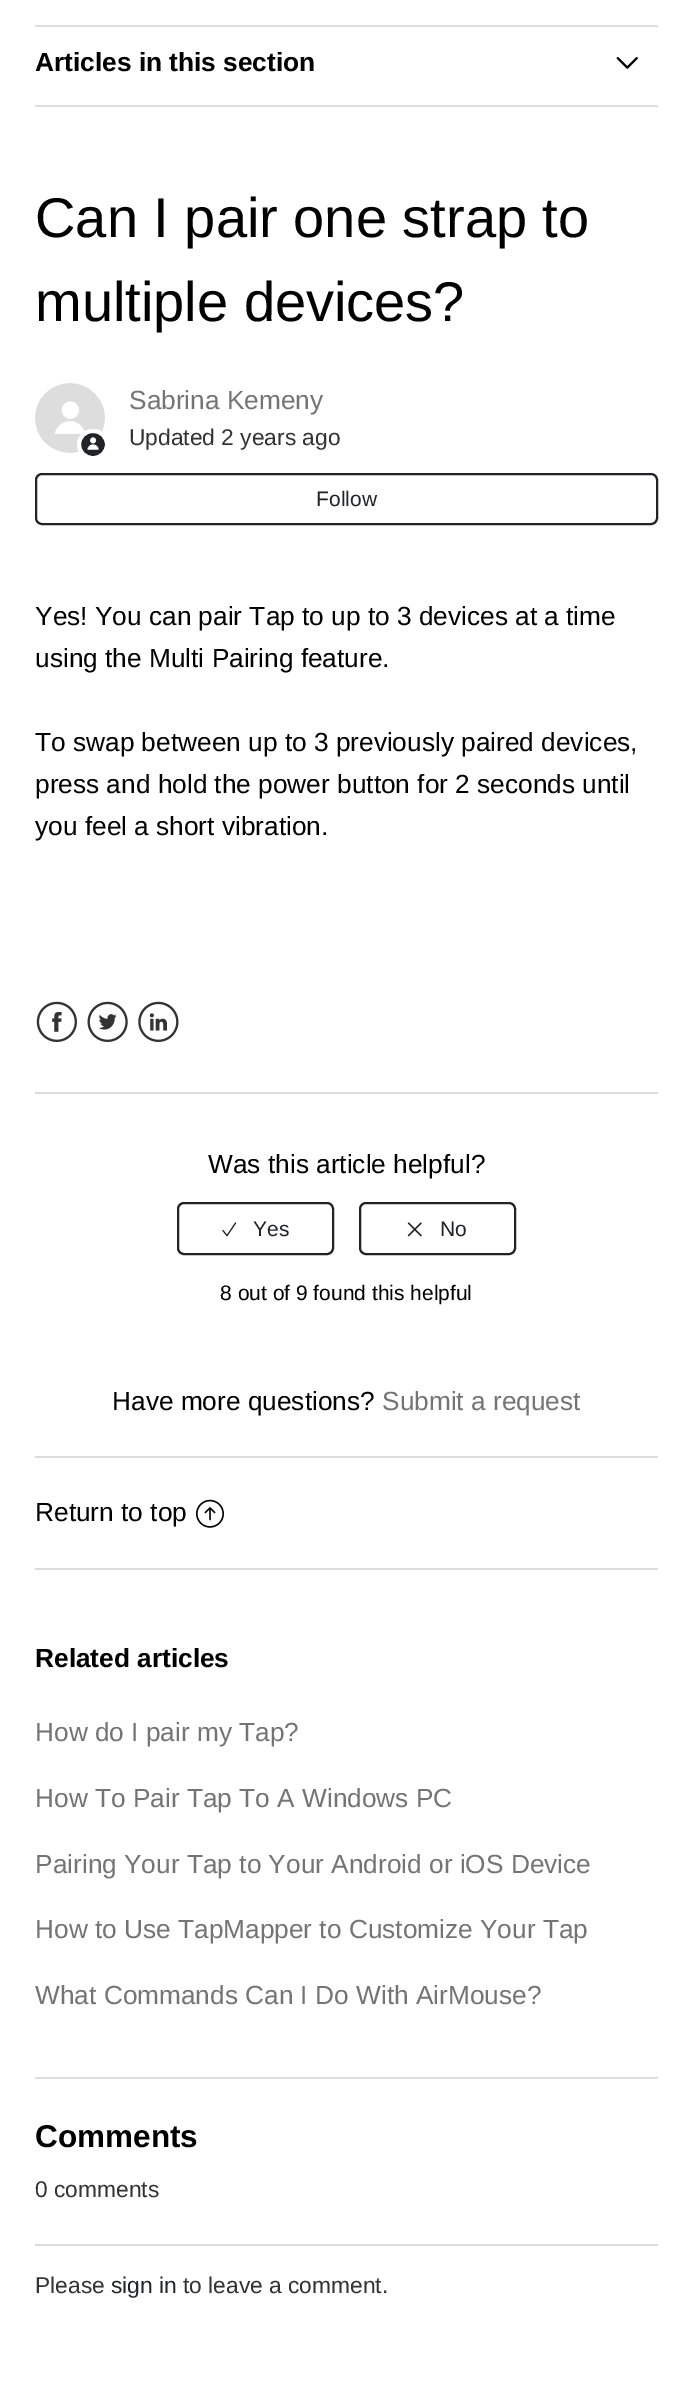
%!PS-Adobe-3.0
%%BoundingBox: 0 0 693 2407
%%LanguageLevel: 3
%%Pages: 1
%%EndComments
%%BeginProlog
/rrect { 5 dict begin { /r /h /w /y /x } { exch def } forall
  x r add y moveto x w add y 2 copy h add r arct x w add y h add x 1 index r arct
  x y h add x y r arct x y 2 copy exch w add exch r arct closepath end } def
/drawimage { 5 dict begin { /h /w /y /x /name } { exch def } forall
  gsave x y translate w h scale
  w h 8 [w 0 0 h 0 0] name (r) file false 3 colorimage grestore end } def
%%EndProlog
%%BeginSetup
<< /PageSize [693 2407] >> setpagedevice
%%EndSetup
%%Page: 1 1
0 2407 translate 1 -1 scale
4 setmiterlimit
1 setgray
0 0 693 2407 rectfill
0.867 setgray
35 25 623 2 rectfill
35 105 623 2 rectfill
(images/1.raw) 616 57 22 12 drawimage
(images/2.raw) 35 383 70 70 drawimage
0.133 0.137 0.161 setrgbcolor
79 431 28 27 13.5 rrect gsave fill grestore
1 setgray
4 setlinewidth
stroke
(images/3.raw) 87 437 12 13 drawimage
0.133 0.137 0.161 setrgbcolor
2 setlinewidth
36 474 621 50 6 rrect stroke
(images/4.raw) 36 1001 41 41 drawimage
(images/5.raw) 87 1001 41 41 drawimage
(images/6.raw) 138 1001 41 41 drawimage
0.867 setgray
35 1092 623 2 rectfill
0.133 0.137 0.161 setrgbcolor
178 1203 155 51 6 rrect stroke
(images/7.raw) 222 1222 15 15 drawimage
360 1203 155 51 6 rrect stroke
(images/8.raw) 407 1222 15 15 drawimage
0.867 setgray
35 1456 623 2 rectfill
(images/9.raw) 196 1499 28 29 drawimage
35 1568 623 2 rectfill
35 2077 623 2 rectfill
35 2244 623 2 rectfill
/LiberationSans-Bold [26.25 0 0 -26.25 0 0] selectfont
0 setgray
35 71 moveto (Articles in this section) show
/LiberationSans-Regular [56 0 0 -56 0 0] selectfont
35 237 moveto (Can I pair one strap to) show
35 321 moveto (multiple devices?) show
/LiberationSans-Regular [26.25 0 0 -26.25 0 0] selectfont
0.455 setgray
129 409 moveto (Sabrina Kemeny) show
/LiberationSans-Regular [22.75 0 0 -22.75 0 0] selectfont
0.2 setgray
129 445 moveto (Updated 2 years ago) show
/LiberationSans-Regular [21 0 0 -21 0 0] selectfont
0.133 0.137 0.161 setrgbcolor
316 506 moveto (Follow) show
/LiberationSans-Regular [26.25 0 0 -26.25 0 0] selectfont
0 setgray
35 625 moveto (Yes! You can pair Tap to up to 3 devices at a time) show
35 667 moveto (using the Multi Pairing feature.) show
35 751 moveto (To swap between up to 3 previously paired devices,) show
35 793 moveto (press and hold the power button for 2 seconds until) show
35 835 moveto (you feel a short vibration.) show
208 1173 moveto (Was this article helpful?) show
/LiberationSans-Regular [21 0 0 -21 0 0] selectfont
0.133 0.137 0.161 setrgbcolor
253 1236 moveto (Yes) show
440 1236 moveto (No) show
0 setgray
220 1300 moveto (8 out of 9 found this helpful) show
/LiberationSans-Regular [26.25 0 0 -26.25 0 0] selectfont
112 1410 moveto (Have more questions?) show
0.455 setgray
382 1410 moveto (Submit a request) show
0 setgray
35 1521 moveto (Return to top) show
/LiberationSans-Bold [26.25 0 0 -26.25 0 0] selectfont
35 1667 moveto (Related articles) show
/LiberationSans-Regular [26.25 0 0 -26.25 0 0] selectfont
0.455 setgray
35 1741 moveto (How do I pair my Tap?) show
35 1807 moveto (How To Pair Tap To A Windows PC) show
35 1873 moveto (Pairing Your Tap to Your Android or iOS Device) show
35 1938 moveto (How to Use TapMapper to Customize Your Tap) show
35 2004 moveto (What Commands Can I Do With AirMouse?) show
/LiberationSans-Bold [31.5 0 0 -31.5 0 0] selectfont
0 setgray
35 2147 moveto (Comments) show
/LiberationSans-Regular [22.75 0 0 -22.75 0 0] selectfont
0.2 setgray
35 2197 moveto (0 comments) show
35 2293 moveto (Please) show
0.133 0.137 0.161 setrgbcolor
111 2293 moveto (sign in) show
0.2 setgray
183 2293 moveto (to leave a comment.) show
showpage
%%EOF
